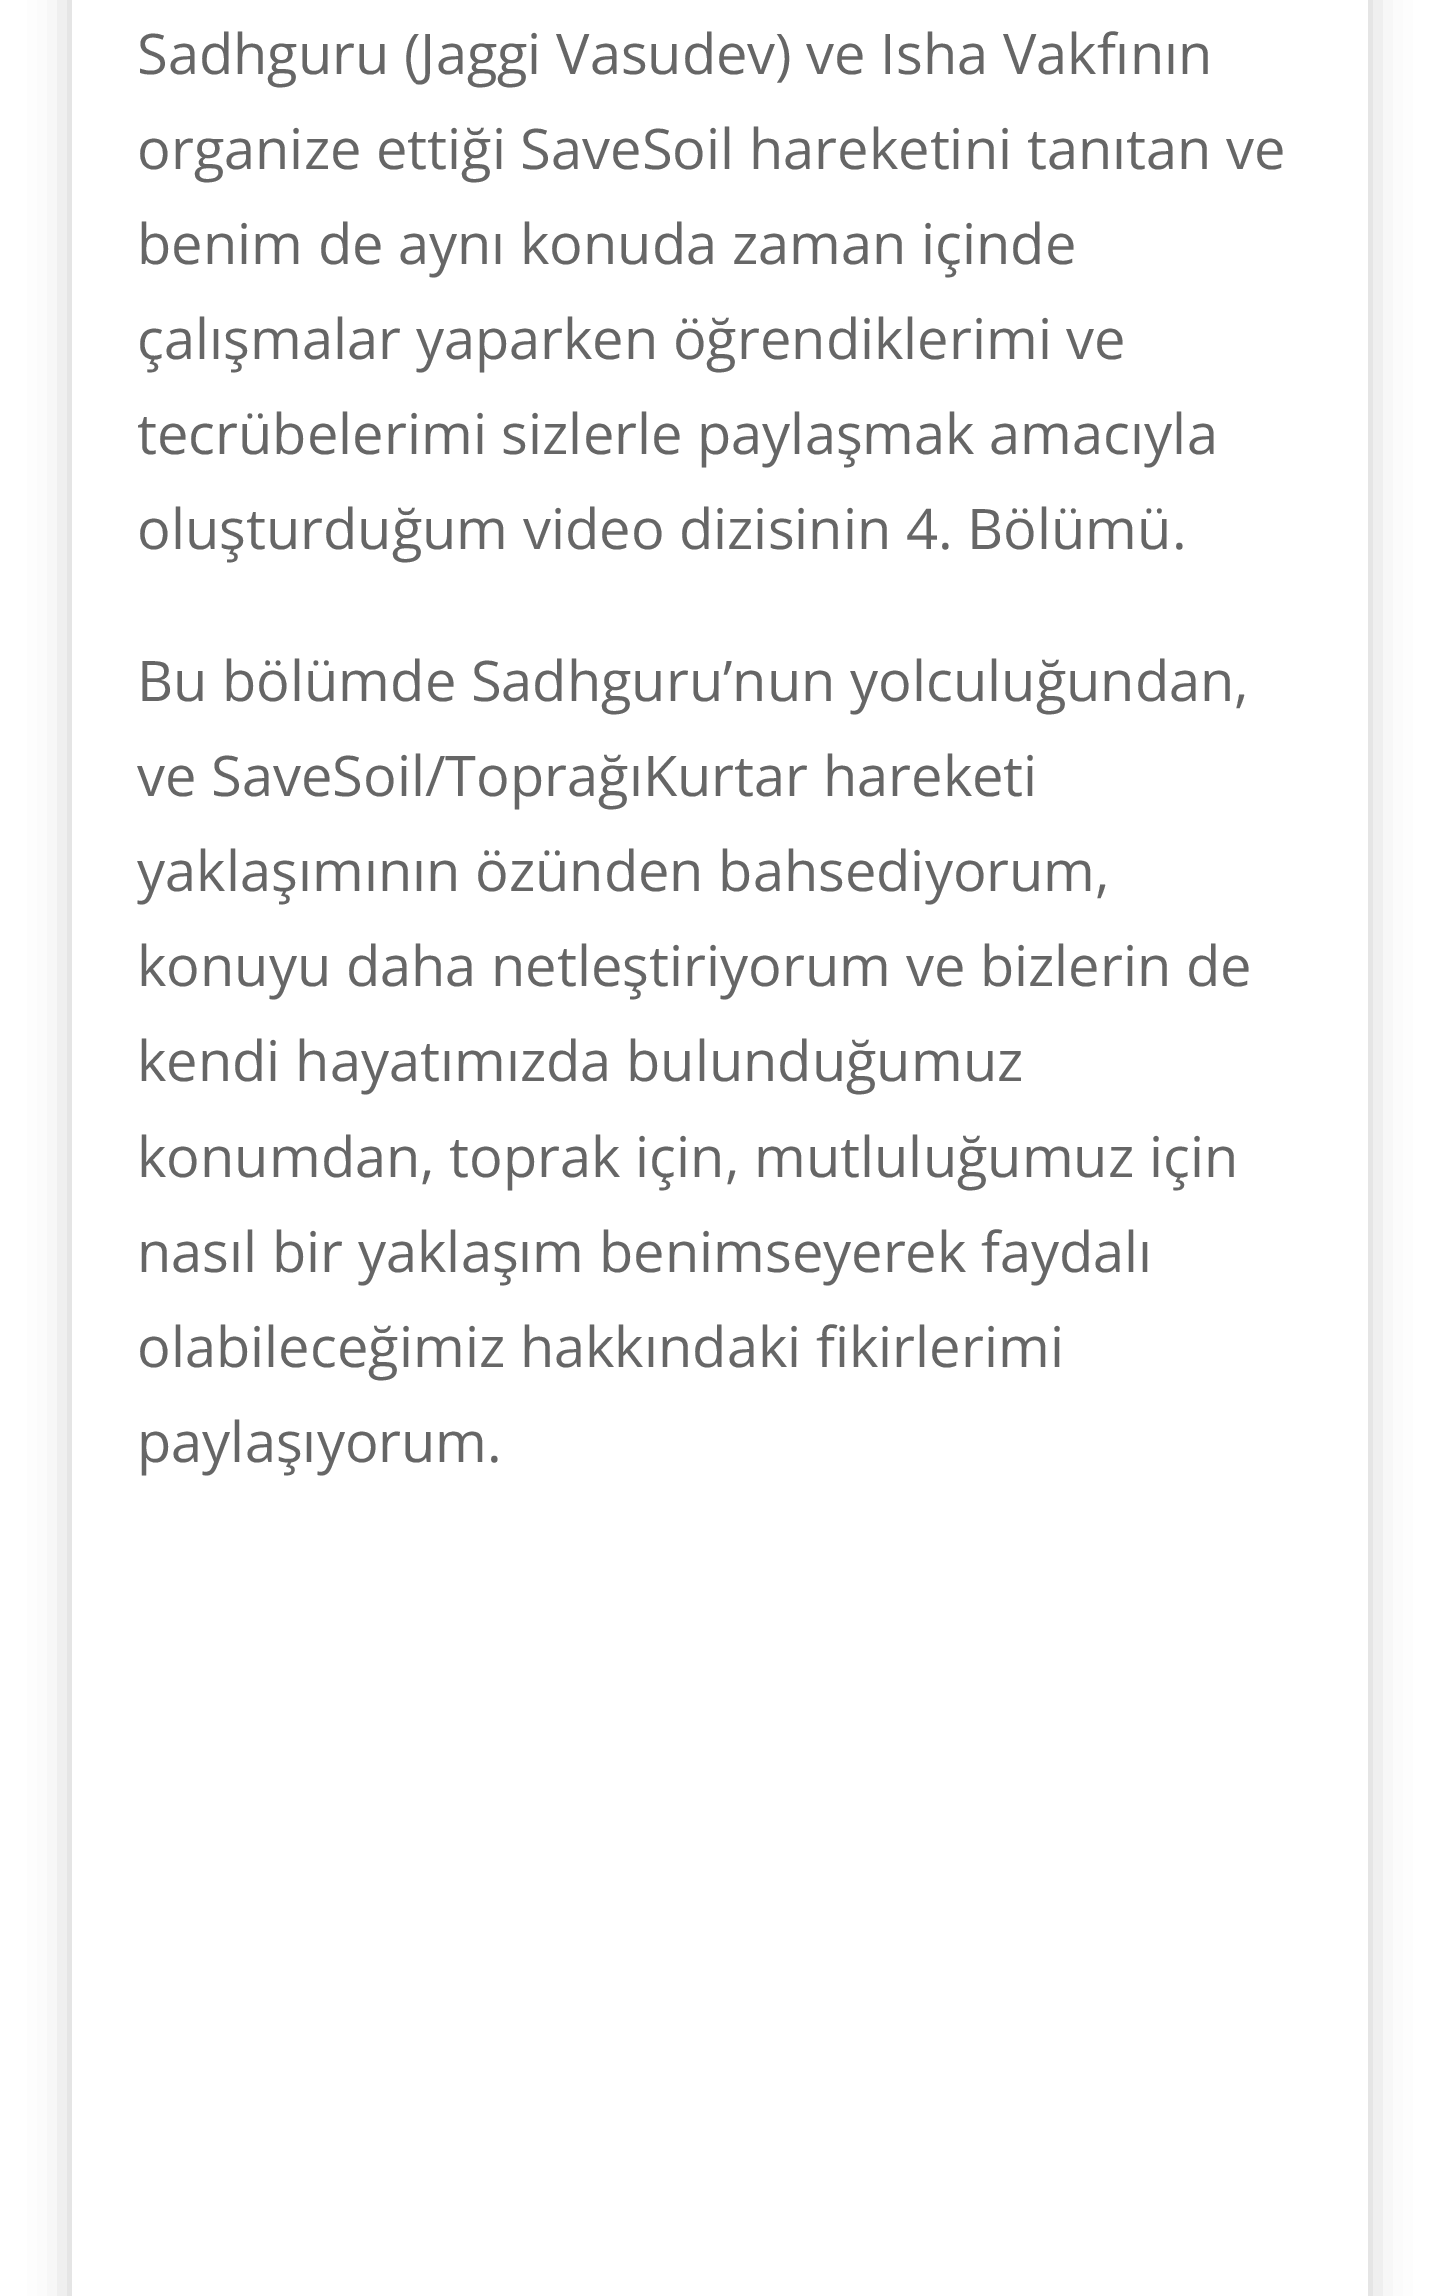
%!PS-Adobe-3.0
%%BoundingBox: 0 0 1437 2296
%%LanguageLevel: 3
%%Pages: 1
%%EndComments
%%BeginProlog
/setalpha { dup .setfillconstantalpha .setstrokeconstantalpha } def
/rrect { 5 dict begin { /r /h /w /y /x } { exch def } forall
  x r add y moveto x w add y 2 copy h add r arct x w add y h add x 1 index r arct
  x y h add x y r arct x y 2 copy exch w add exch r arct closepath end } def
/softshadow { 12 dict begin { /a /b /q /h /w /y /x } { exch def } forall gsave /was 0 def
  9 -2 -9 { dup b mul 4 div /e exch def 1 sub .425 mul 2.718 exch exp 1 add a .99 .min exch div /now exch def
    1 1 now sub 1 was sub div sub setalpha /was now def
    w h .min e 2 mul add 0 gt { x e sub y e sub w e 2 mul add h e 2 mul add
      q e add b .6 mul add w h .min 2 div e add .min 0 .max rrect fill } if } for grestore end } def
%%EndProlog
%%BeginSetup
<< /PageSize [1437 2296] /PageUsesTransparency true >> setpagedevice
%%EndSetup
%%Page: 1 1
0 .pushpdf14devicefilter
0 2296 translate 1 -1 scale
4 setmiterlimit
1 setgray
0 0 1437 2296 rectfill
gsave
newpath 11 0 moveto 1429 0 lineto 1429 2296 lineto 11 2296 lineto closepath 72 -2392 moveto 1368 -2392 lineto 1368 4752 lineto 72 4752 lineto closepath eoclip newpath
0 setgray
72 -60 1296 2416 0 20 0.2 softshadow
grestore
/OpenSans-Regular [56 0 0 -56 0 0] selectfont
0.4 setgray
137 74 moveto (Sadhguru \(Jaggi Vasudev\) ve Isha Vakfının) show
137 169 moveto (organize ettiği SaveSoil hareketini tanıtan ve) show
137 264 moveto (benim de aynı konuda zaman içinde) show
137 359 moveto (çalışmalar yaparken öğrendiklerimi ve) show
137 454 moveto (tecrübelerimi sizlerle paylaşmak amacıyla) show
137 549 moveto (oluşturduğum video dizisinin 4. Bölümü.) show
137 701 moveto (Bu bölümde Sadhguru’nun yolculuğundan,) show
137 796 moveto (ve SaveSoil/ToprağıKurtar hareketi) show
137 891 moveto (yaklaşımının özünden bahsediyorum,) show
137 986 moveto (konuyu daha netleştiriyorum ve bizlerin de) show
137 1081 moveto (kendi hayatımızda bulunduğumuz) show
137 1177 moveto (konumdan, toprak için, mutluluğumuz için) show
137 1272 moveto (nasıl bir yaklaşım benimseyerek faydalı) show
137 1367 moveto (olabileceğimiz hakkındaki fikirlerimi) show
137 1462 moveto (paylaşıyorum.) show
.poppdf14devicefilter showpage
%%EOF
